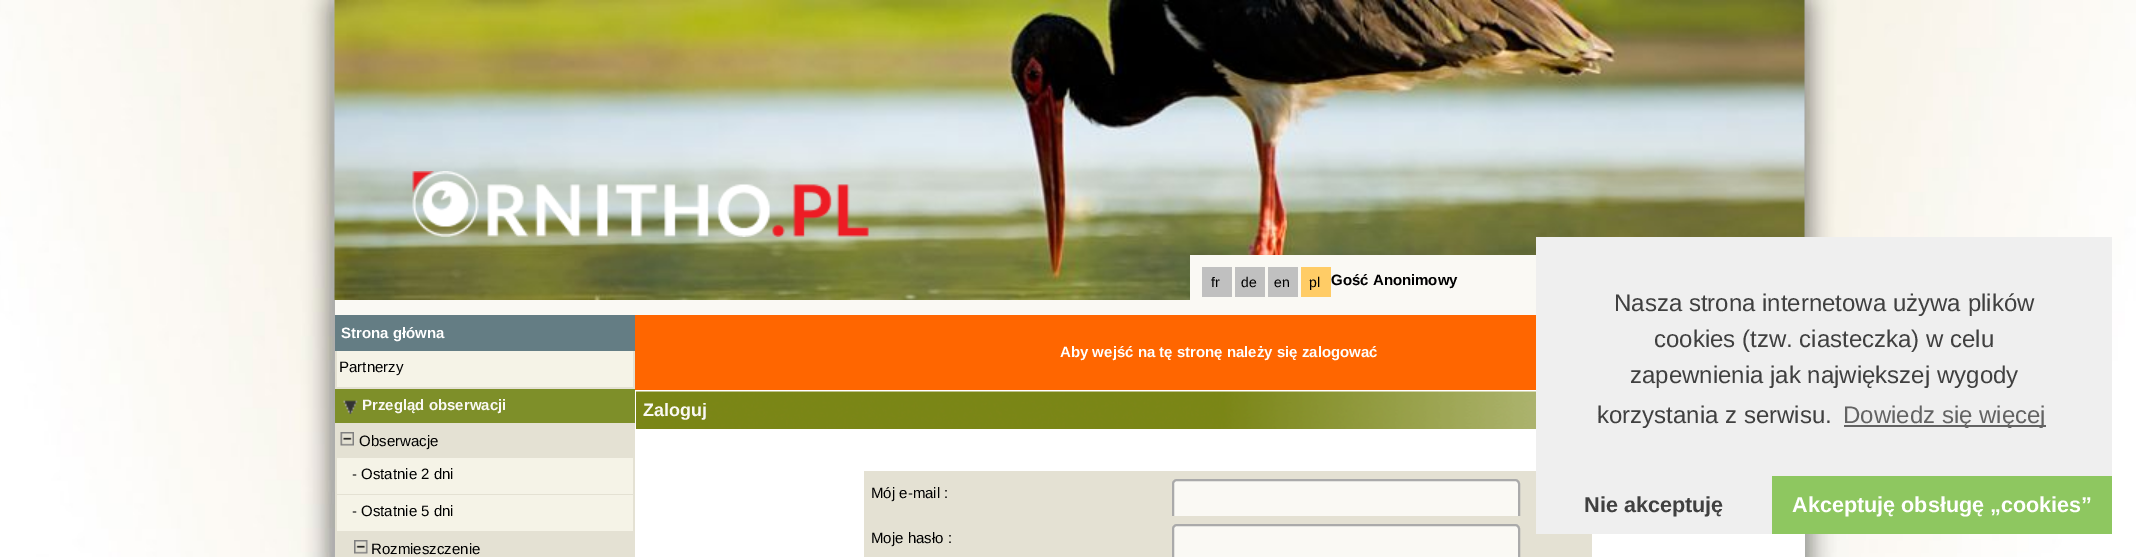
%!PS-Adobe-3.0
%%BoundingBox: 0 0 2136 557
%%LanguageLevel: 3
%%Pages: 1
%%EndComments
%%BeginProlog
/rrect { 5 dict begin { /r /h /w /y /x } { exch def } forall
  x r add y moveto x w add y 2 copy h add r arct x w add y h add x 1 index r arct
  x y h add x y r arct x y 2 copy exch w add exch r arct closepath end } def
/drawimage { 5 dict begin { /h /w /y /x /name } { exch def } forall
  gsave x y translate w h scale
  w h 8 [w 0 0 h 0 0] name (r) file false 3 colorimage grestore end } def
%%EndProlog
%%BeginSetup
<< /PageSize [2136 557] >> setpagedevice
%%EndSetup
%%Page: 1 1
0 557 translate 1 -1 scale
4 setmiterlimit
1 setgray
0 0 2136 557 rectfill
(images/1.raw) 0 0 2136 557 drawimage
(images/2.raw) 334 0 1471 300 drawimage
(images/3.raw) 412 171 457 66 drawimage
0.98 0.976 0.957 setrgbcolor
1190 255 346 45 rectfill
0.753 setgray
1202 267 30 30 rectfill
1235 267 30 30 rectfill
1268 267 30 30 rectfill
1 0.8 0.4 setrgbcolor
1301 267 30 30 rectfill
1 setgray
1801 390 4 167 rectfill
0.98 0.976 0.957 setrgbcolor
335 300 1201 15 rectfill
0.392 0.49 0.518 setrgbcolor
335 315 300 36 rectfill
0.961 0.953 0.906 setrgbcolor
337 351 296 36 rectfill
0.894 0.882 0.827 setrgbcolor
633 351 2 38 rectfill
335 387 300 2 rectfill
335 351 2 38 rectfill
0.494 0.561 0.161 setrgbcolor
335 389 300 34 rectfill
0.894 0.882 0.827 setrgbcolor
335 423 300 35 rectfill
(images/4.raw) 343 400 15 14 drawimage
(images/5.raw) 340 432 14 14 drawimage
0.961 0.953 0.906 setrgbcolor
337 458 296 36 rectfill
0.894 0.882 0.827 setrgbcolor
633 458 2 75 rectfill
335 494 300 1 rectfill
335 458 2 37 rectfill
0.961 0.953 0.906 setrgbcolor
337 495 296 36 rectfill
0.894 0.882 0.827 setrgbcolor
335 531 300 26 rectfill
335 495 2 38 rectfill
(images/6.raw) 354 540 14 14 drawimage
1 0.4 0 setrgbcolor
635 315 901 75 rectfill
(images/7.raw) 636 391 900 38 drawimage
0.894 0.882 0.827 setrgbcolor
864 471 672 45 rectfill
0.98 0.976 0.957 setrgbcolor
1173 480 346 43 4 rrect gsave fill grestore
0.667 setgray
2 setlinewidth
stroke
0.894 0.882 0.827 setrgbcolor
864 516 728 41 rectfill
0.98 0.976 0.957 setrgbcolor
1173 525 346 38 4 rrect gsave fill grestore
0.667 setgray
stroke
0.937 setgray
1536 237 576 297 rectfill
0.388 setgray
1844 425 202 2 rectfill
0.557 0.78 0.376 setrgbcolor
1772 476 340 58 rectfill
/LiberationSans-Regular [14 0 0 -14 0 0] selectfont
0 setgray
1211 287 moveto (fr) show
1241 287 moveto (de) show
1274 287 moveto (en) show
1309 287 moveto (pl) show
/LiberationSans-Bold [15 0 0 -15 0 0] selectfont
1331 285 moveto (Gość Anonimowy) show
1 setgray
341 338 moveto (Strona główna) show
/LiberationSans-Regular [15 0 0 -15 0 0] selectfont
0 setgray
339 372 moveto (Partnerzy) show
/LiberationSans-Bold [15 0 0 -15 0 0] selectfont
0.98 0.976 0.957 setrgbcolor
362 410 moveto (Przegląd obserwacji) show
/LiberationSans-Regular [15 0 0 -15 0 0] selectfont
0 setgray
359 446 moveto (Obserwacje) show
352 479 moveto (- Ostatnie 2 dni) show
352 516 moveto (- Ostatnie 5 dni) show
371 554 moveto (Rozmieszczenie) show
/LiberationSans-Bold [15 0 0 -15 0 0] selectfont
1 setgray
1060 357 moveto (Aby wejść na tę stronę należy się zalogować) show
/LiberationSans-Bold [18 0 0 -18 0 0] selectfont
0.98 0.976 0.957 setrgbcolor
643 416 moveto (Zaloguj) show
/LiberationSans-Regular [15 0 0 -15 0 0] selectfont
0 setgray
871 498 moveto (Mój e-mail :) show
871 543 moveto (Moje hasło :) show
/LiberationSans-Regular [24 0 0 -24 0 0] selectfont
0.251 setgray
1614 311 moveto (Nasza strona internetowa używa plików) show
1654 347 moveto (cookies \(tzw. ciasteczka\) w celu) show
1630 383 moveto (zapewnienia jak największej wygody) show
1597 423 moveto (korzystania z serwisu.) show
0.388 setgray
1843 423 moveto (Dowiedz się więcej) show
/LiberationSans-Bold [21.6 0 0 -21.6 0 0] selectfont
0.251 setgray
1584 512 moveto (Nie akceptuję) show
1 setgray
1792 512 moveto (Akceptuję obsługę „cookies”) show
showpage
%%EOF
